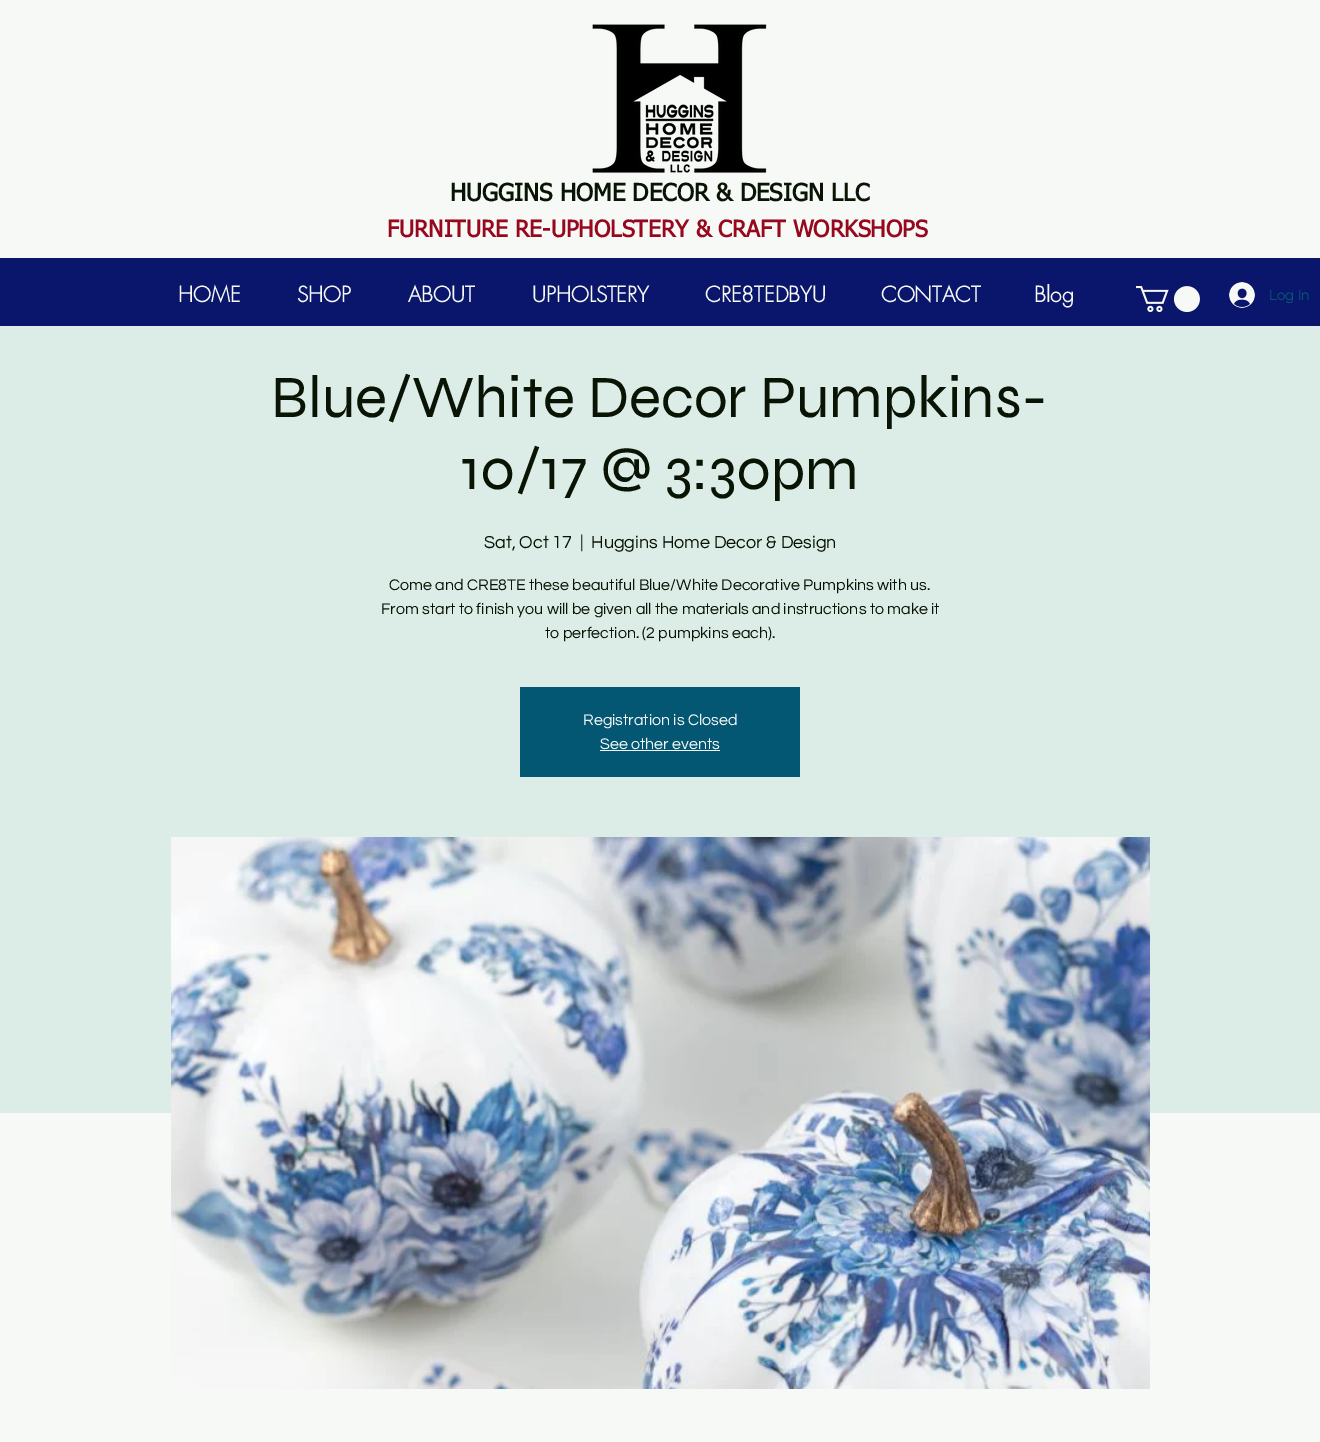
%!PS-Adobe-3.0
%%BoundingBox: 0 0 1320 1442
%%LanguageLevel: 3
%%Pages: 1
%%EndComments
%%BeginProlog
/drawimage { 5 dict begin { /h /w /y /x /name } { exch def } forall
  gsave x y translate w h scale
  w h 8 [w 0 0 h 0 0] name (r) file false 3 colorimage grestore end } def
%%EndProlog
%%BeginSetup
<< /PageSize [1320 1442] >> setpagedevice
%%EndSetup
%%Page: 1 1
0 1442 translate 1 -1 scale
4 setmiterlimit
0.965 0.976 0.961 setrgbcolor
0 0 1320 1442 rectfill
(images/1.raw) 592 24 175 149 drawimage
0.039 0.086 0.42 setrgbcolor
0 258 1320 68 rectfill
(images/2.raw) 1136 286 64 27 drawimage
(images/3.raw) 1229 282 26 26 drawimage
0.863 0.925 0.902 setrgbcolor
0 326 1320 787 rectfill
0.012 0.341 0.447 setrgbcolor
520 687 280 90 rectfill
0.965 0.976 0.961 setrgbcolor
600 750 120 1 rectfill
(images/4.raw) 171 837 979 552 drawimage
/tahoma-Bold [24 0 0 -24 0 0] selectfont
0.035 0.078 0.02 setrgbcolor
450 201 moveto (HUGGINS HOME DECOR & DESIGN LLC) show
/tahoma-Bold [23 0 0 -23 0 0] selectfont
0.592 0.031 0.118 setrgbcolor
387 237 moveto (FURNITURE RE-UPHOLSTERY & CRAFT WORKSHOPS) show
/futura-Bold [21 0 0 -21 0 0] selectfont
0.965 0.976 0.961 setrgbcolor
178 302 moveto (HOME) show
297 302 moveto (SHOP) show
408 302 moveto (ABOUT) show
532 302 moveto (UPHOLSTERY) show
705 302 moveto (CRE8TEDBYU) show
881 302 moveto (CONTACT) show
1034 302 moveto (Blog) show
/Questrial-Regular [15 0 0 -15 0 0] selectfont
0.012 0.341 0.447 setrgbcolor
1269 300 moveto (Log In) show
/Syne-Regular [60 0 0 -60 0 0] selectfont
0.035 0.078 0.02 setrgbcolor
271 417 moveto (Blue/White Decor Pumpkins-) show
461 489 moveto (10/17 @ 3:30pm) show
/Questrial-Regular [18 0 0 -18 0 0] selectfont
484 548 moveto (Sat, Oct 17) show
580 548 moveto (|) show
591 548 moveto (Huggins Home Decor & Design) show
/Questrial-Regular [16 0 0 -16 0 0] selectfont
389 590 moveto (Come and CRE8TE these beautiful Blue/White Decorative Pumpkins with us.) show
381 614 moveto (From start to finish you will be given all the materials and instructions to make it) show
545 638 moveto (to perfection. \(2 pumpkins each\).) show
0.965 0.976 0.961 setrgbcolor
583 725 moveto (Registration is Closed) show
600 749 moveto (See other events) show
showpage
%%EOF
